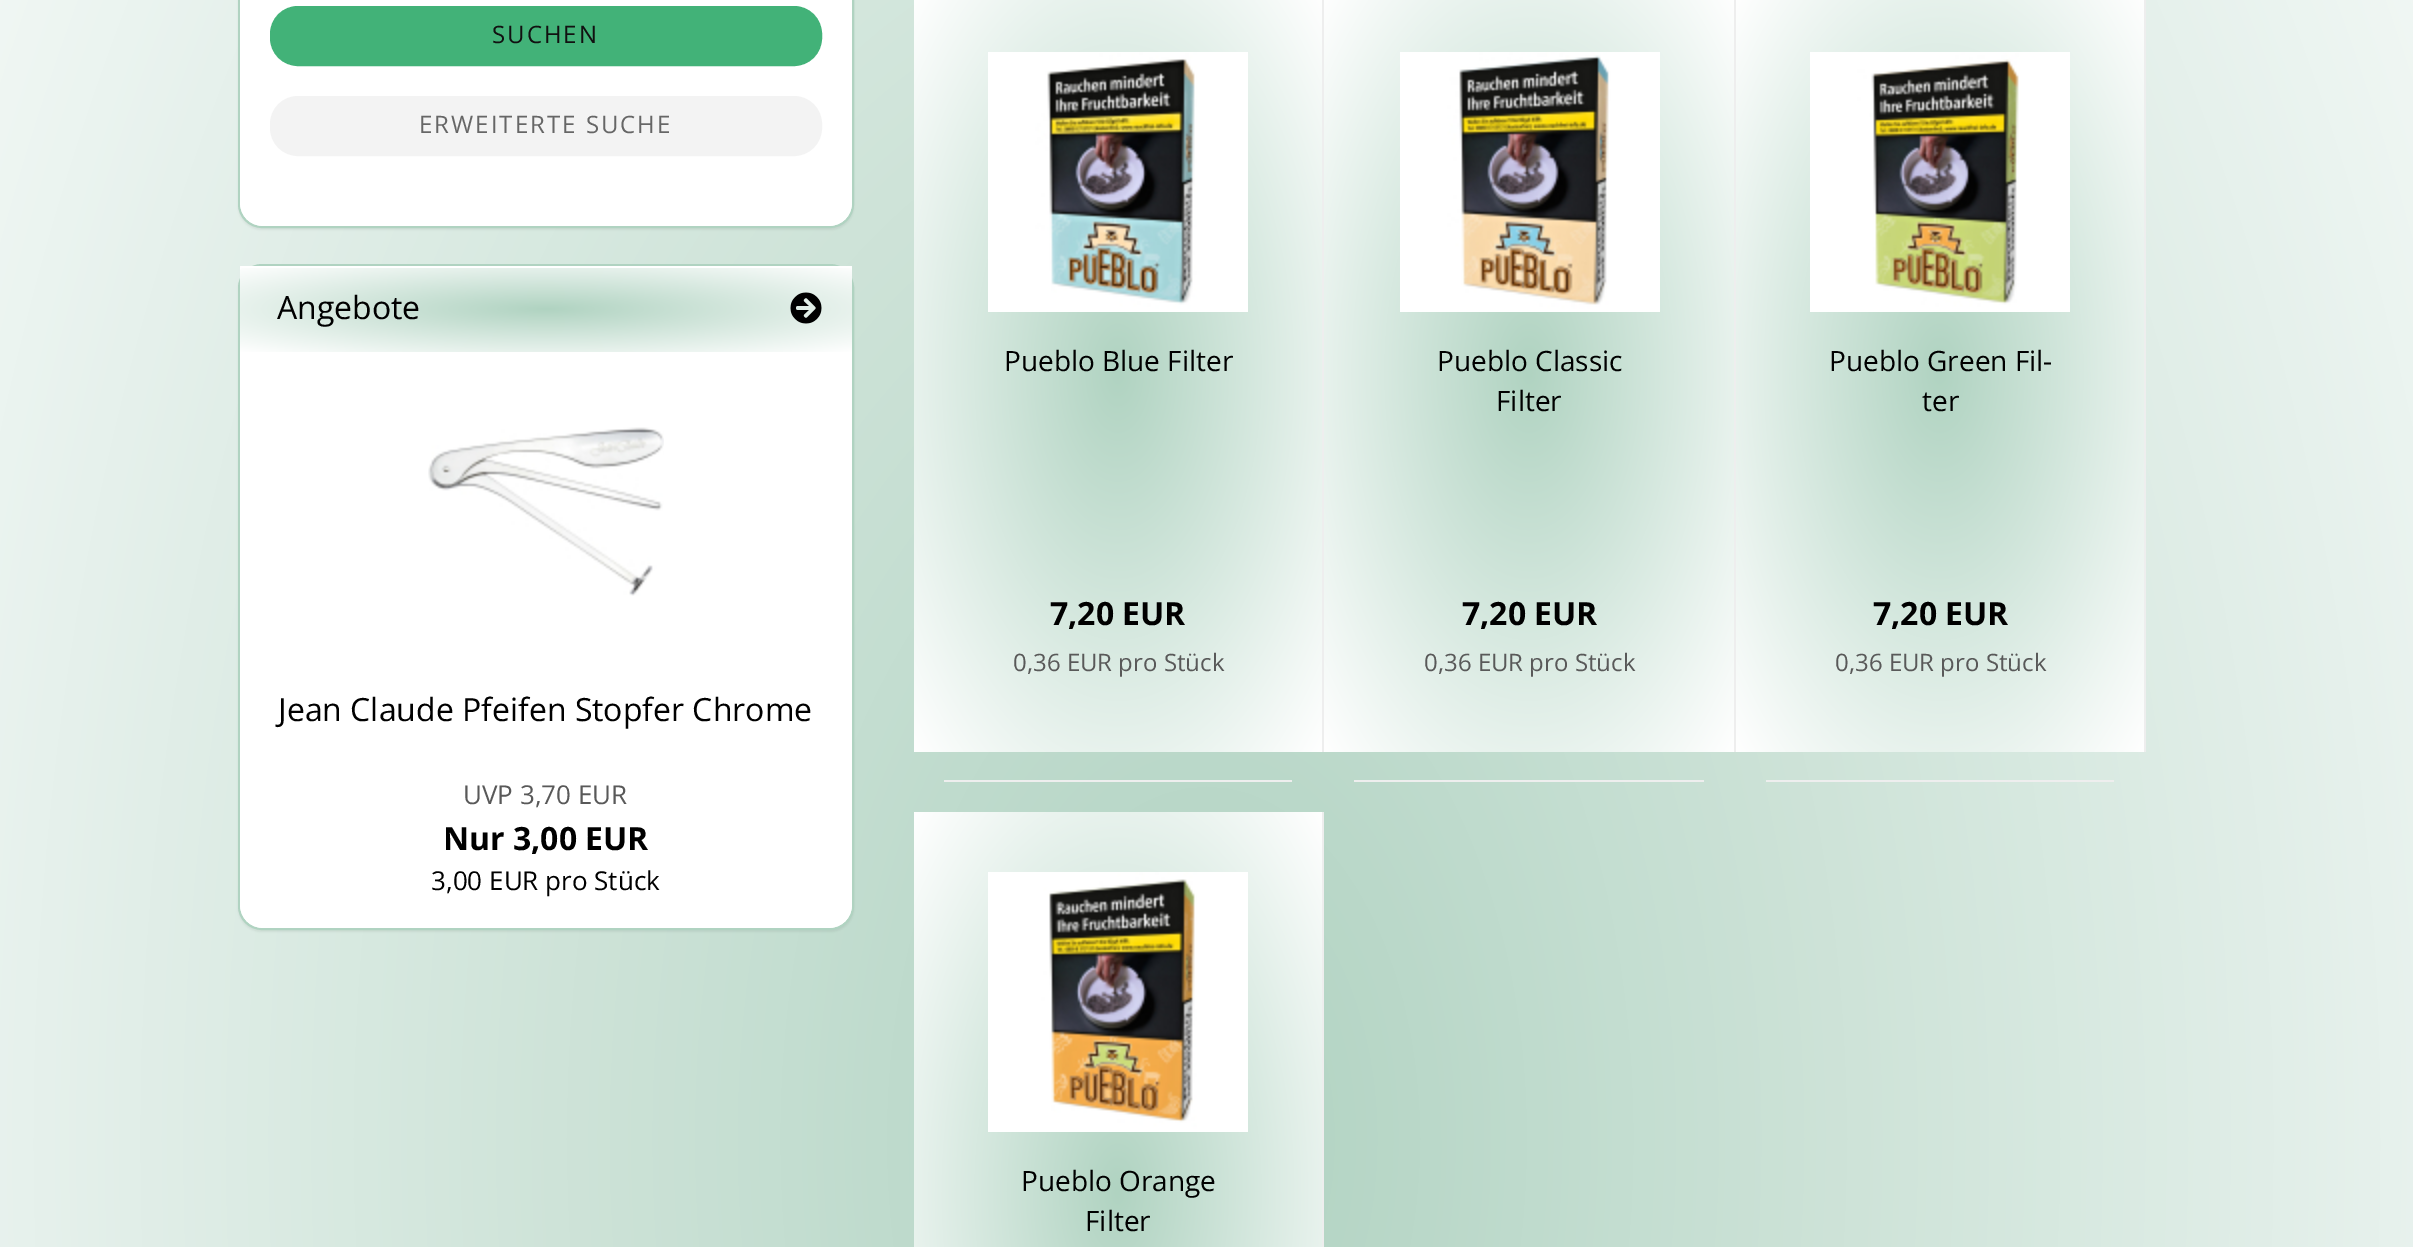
%!PS-Adobe-3.0
%%BoundingBox: 0 0 2413 1247
%%LanguageLevel: 3
%%Pages: 1
%%EndComments
%%BeginProlog
/setalpha { dup .setfillconstantalpha .setstrokeconstantalpha } def
/rrect { 5 dict begin { /r /h /w /y /x } { exch def } forall
  x r add y moveto x w add y 2 copy h add r arct x w add y h add x 1 index r arct
  x y h add x y r arct x y 2 copy exch w add exch r arct closepath end } def
/softshadow { 12 dict begin { /a /b /q /h /w /y /x } { exch def } forall gsave /was 0 def
  9 -2 -9 { dup b mul 4 div /e exch def 1 sub .425 mul 2.718 exch exp 1 add a .99 .min exch div /now exch def
    1 1 now sub 1 was sub div sub setalpha /was now def
    w h .min e 2 mul add 0 gt { x e sub y e sub w e 2 mul add h e 2 mul add
      q e add b .6 mul add w h .min 2 div e add .min 0 .max rrect fill } if } for grestore end } def
/drawimage { 5 dict begin { /h /w /y /x /name } { exch def } forall
  gsave x y translate w h scale
  w h 8 [w 0 0 h 0 0] name (r) file false 3 colorimage grestore end } def
%%EndProlog
%%BeginSetup
<< /PageSize [2413 1247] /PageUsesTransparency true >> setpagedevice
%%EndSetup
%%Page: 1 1
0 .pushpdf14devicefilter
0 1247 translate 1 -1 scale
4 setmiterlimit
1 setgray
0 0 2413 1247 rectfill
gsave newpath 0 0 moveto 2413 0 lineto 2413 1247 lineto 0 1247 lineto closepath clip newpath 1207 1139 translate 1707 2819 scale
<< /ShadingType 3 /ColorSpace /DeviceRGB /Coords [0 0 0 0 0 1] /Extend [true true] /Function << /FunctionType 2 /Domain [0 1] /C0 [0.69 0.827 0.757] /C1 [1 1 1] /N 1 >> >> shfill grestore
0 setgray
238 -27 616 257 24 1 0.05 softshadow
1 setgray
239 -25 614 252 23 rrect gsave fill grestore
0.69 0.827 0.757 setrgbcolor
2 setlinewidth
stroke
1 setgray
newpath 240 -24 moveto 852 -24 lineto 852 202 lineto 852 215.5 841.5 226 828 226 curveto 264 226 lineto 250.5 226 240 215.5 240 202 curveto closepath fill
0.259 0.698 0.471 setrgbcolor
271 7 550 58 27 rrect gsave fill grestore
stroke
0.953 setgray
271 97 550 58 27 rrect gsave fill grestore
stroke
0 setgray
238 266 616 666 24 1 0.05 softshadow
1 setgray
239 265 614 664 23 rrect gsave fill grestore
0.69 0.827 0.757 setrgbcolor
stroke
gsave newpath 242 266 moveto 850 266 lineto 851 266 852 267 852 268 curveto 852 352 lineto 240 352 lineto 240 268 lineto 240 267 241 266 242 266 curveto closepath clip newpath 546 309 translate 433 61 scale
<< /ShadingType 3 /ColorSpace /DeviceRGB /Coords [0 0 0 0 0 1] /Extend [true true] /Function << /FunctionType 2 /Domain [0 1] /C0 [0.69 0.827 0.757] /C1 [1 1 1] /N 1 >> >> shfill grestore
1 setgray
newpath 242 268 moveto 850 268 lineto 851 268 852 269 852 270 curveto 852 268 852 266 850 266 curveto 242 266 lineto 240 267 lineto 240 270 lineto 240 269 241 268 242 268 curveto closepath fill
(images/1.raw) 790 292 32 32 drawimage
newpath 240 352 moveto 852 352 lineto 852 904 lineto 852 917.5 841.5 928 828 928 curveto 264 928 lineto 250.5 928 240 917.5 240 904 curveto closepath fill
(images/2.raw) 428 427 236 169 drawimage
gsave newpath 914 0 moveto 1322 0 lineto 1322 752 lineto 914 752 lineto closepath clip newpath 1118 372 translate 288 537 scale
<< /ShadingType 3 /ColorSpace /DeviceRGB /Coords [0 0 0 0 0 1] /Extend [true true] /Function << /FunctionType 2 /Domain [0 1] /C0 [0.69 0.827 0.757] /C1 [1 1 1] /N 1 >> >> shfill grestore
0.933 setgray
1322 0 2 752 rectfill
944 780 348 2 rectfill
(images/3.raw) 988 52 260 260 drawimage
gsave newpath 1324 0 moveto 1734 0 lineto 1734 752 lineto 1324 752 lineto closepath clip newpath 1529 372 translate 290 537 scale
<< /ShadingType 3 /ColorSpace /DeviceRGB /Coords [0 0 0 0 0 1] /Extend [true true] /Function << /FunctionType 2 /Domain [0 1] /C0 [0.69 0.827 0.757] /C1 [1 1 1] /N 1 >> >> shfill grestore
1734 0 2 752 rectfill
1354 780 350 2 rectfill
(images/4.raw) 1400 52 260 260 drawimage
gsave newpath 1736 0 moveto 2144 0 lineto 2144 752 lineto 1736 752 lineto closepath clip newpath 1940 372 translate 288 537 scale
<< /ShadingType 3 /ColorSpace /DeviceRGB /Coords [0 0 0 0 0 1] /Extend [true true] /Function << /FunctionType 2 /Domain [0 1] /C0 [0.69 0.827 0.757] /C1 [1 1 1] /N 1 >> >> shfill grestore
2144 0 2 752 rectfill
1766 780 348 2 rectfill
(images/5.raw) 1810 52 260 260 drawimage
gsave newpath 914 812 moveto 1322 812 lineto 1322 1247 lineto 914 1247 lineto closepath clip newpath 1118 1192 translate 288 537 scale
<< /ShadingType 3 /ColorSpace /DeviceRGB /Coords [0 0 0 0 0 1] /Extend [true true] /Function << /FunctionType 2 /Domain [0 1] /C0 [0.69 0.827 0.757] /C1 [1 1 1] /N 1 >> >> shfill grestore
1322 812 2 435 rectfill
(images/6.raw) 988 872 260 260 drawimage
/OpenSans-Regular [24 0 0 -24 0 0] selectfont
0.067 setgray
492 43 moveto 2 0 (SUCHEN) ashow
0.4 setgray
419 133 moveto 2 0 (ERWEITERTE SUCHE) ashow
/OpenSans-Regular [32 0 0 -32 0 0] selectfont
0 setgray
277 319 moveto (Angebote) show
278 721 moveto (Jean Claude Pfeifen Stopfer Chrome) show
/OpenSans-Regular [26 0 0 -26 0 0] selectfont
0.349 setgray
463 804 moveto (UVP 3,70 EUR) show
/OpenSans-Bold [32 0 0 -32 0 0] selectfont
0 setgray
443 850 moveto (Nur 3,00 EUR) show
/OpenSans-Regular [26 0 0 -26 0 0] selectfont
431 890 moveto (3,00 EUR pro Stück) show
/OpenSans-Regular [28 0 0 -28 0 0] selectfont
1004 371 moveto (Pueblo Blue Filter) show
/OpenSans-Bold [32 0 0 -32 0 0] selectfont
1050 625 moveto (7,20 EUR) show
/OpenSans-Regular [24 0 0 -24 0 0] selectfont
0.349 setgray
1013 671 moveto (0,36 EUR pro Stück) show
/OpenSans-Regular [28 0 0 -28 0 0] selectfont
0 setgray
1437 371 moveto (Pueblo Classic) show
1496 411 moveto (Filter) show
/OpenSans-Bold [32 0 0 -32 0 0] selectfont
1462 625 moveto (7,20 EUR) show
/OpenSans-Regular [24 0 0 -24 0 0] selectfont
0.349 setgray
1424 671 moveto (0,36 EUR pro Stück) show
/OpenSans-Regular [28 0 0 -28 0 0] selectfont
0 setgray
1829 371 moveto (Pueblo Green Fil-) show
1922 411 moveto (ter) show
/OpenSans-Bold [32 0 0 -32 0 0] selectfont
1873 625 moveto (7,20 EUR) show
/OpenSans-Regular [24 0 0 -24 0 0] selectfont
0.349 setgray
1835 671 moveto (0,36 EUR pro Stück) show
/OpenSans-Regular [28 0 0 -28 0 0] selectfont
0 setgray
1021 1191 moveto (Pueblo Orange) show
1085 1231 moveto (Filter) show
.poppdf14devicefilter showpage
%%EOF
